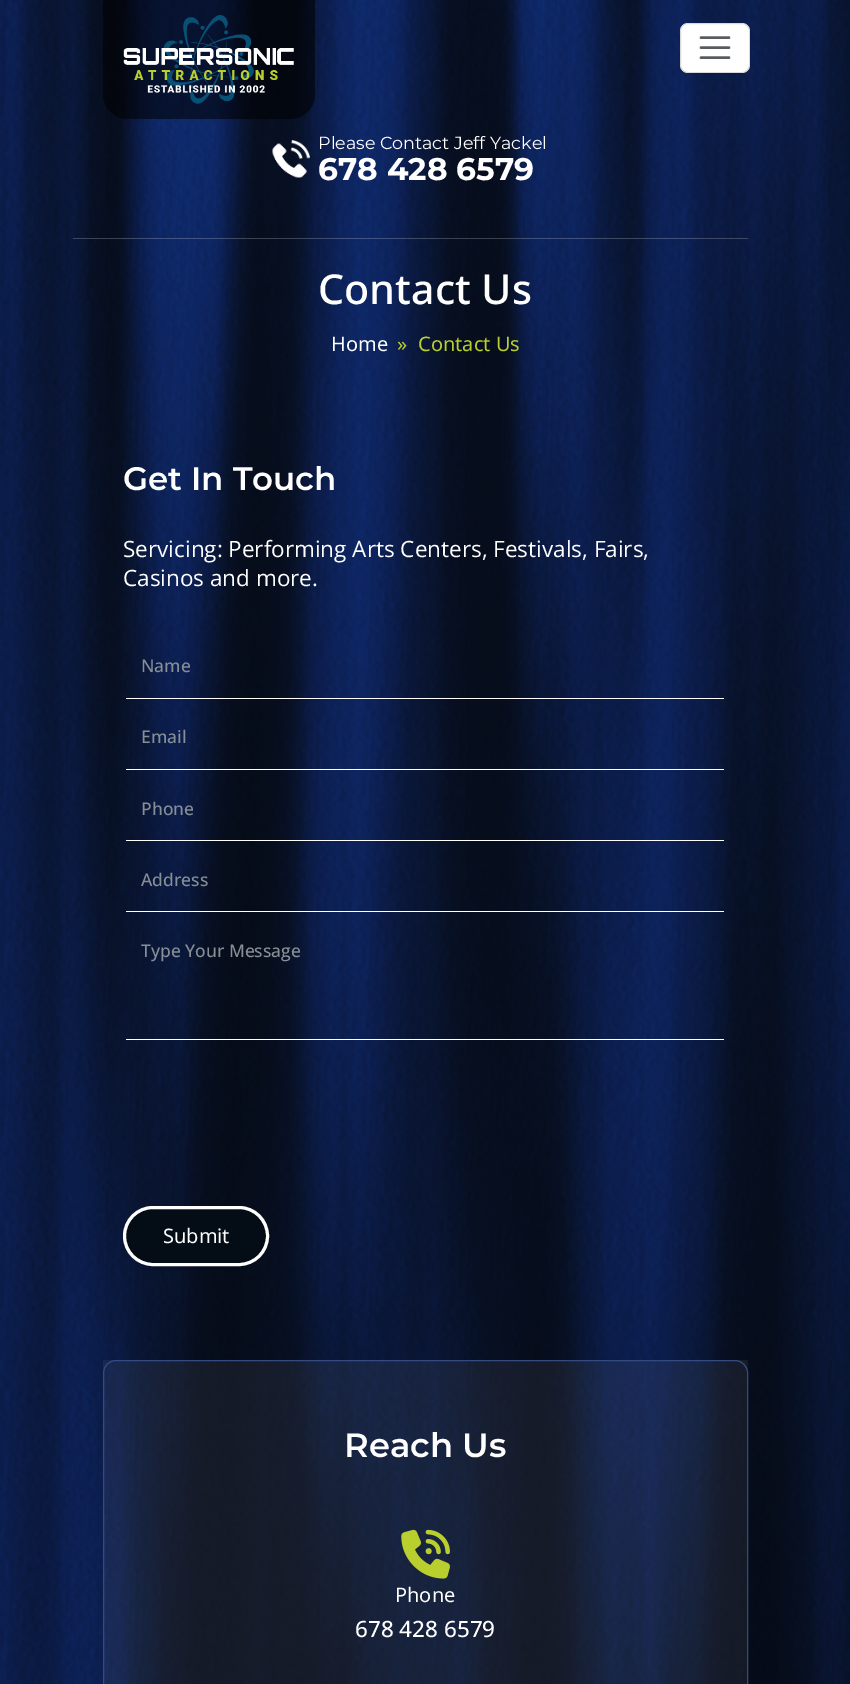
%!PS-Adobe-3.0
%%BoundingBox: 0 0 850 1684
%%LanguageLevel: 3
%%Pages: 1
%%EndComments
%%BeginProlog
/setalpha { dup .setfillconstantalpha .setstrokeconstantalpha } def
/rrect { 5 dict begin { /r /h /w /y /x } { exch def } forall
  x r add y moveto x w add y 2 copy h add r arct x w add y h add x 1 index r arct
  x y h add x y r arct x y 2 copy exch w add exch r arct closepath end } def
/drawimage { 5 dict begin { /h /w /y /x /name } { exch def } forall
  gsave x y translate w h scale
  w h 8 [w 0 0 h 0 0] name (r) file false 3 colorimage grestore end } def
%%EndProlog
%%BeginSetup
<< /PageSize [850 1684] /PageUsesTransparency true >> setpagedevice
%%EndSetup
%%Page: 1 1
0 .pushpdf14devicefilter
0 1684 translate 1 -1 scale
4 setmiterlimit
1 setgray
0 0 850 1684 rectfill
(images/1.raw) 0 0 850 1684 drawimage
0.21 setalpha
73 238 675 1 rectfill
0.56 setalpha
0 setgray
newpath 103 0 moveto 315 0 lineto 315 94 lineto 315 108 304 119 290 119 curveto 128 119 lineto 114 119 103 108 103 94 curveto closepath fill
1 setalpha
(images/2.raw) 123 15 171 89 drawimage
1 setgray
680 23 70 50 8 rrect fill
0.15 setalpha
0 setgray
680.5 23.5 69 49 7.5 rrect stroke
1 setalpha
0.349 0.361 0.373 setrgbcolor
2.5 setlinewidth
1 setlinecap
newpath 701 37.5 moveto 729 37.5 lineto 701 47.5 moveto 729 47.5 lineto 701 57.5 moveto 729 57.5 lineto stroke
(images/3.raw) 272 140 38 38 drawimage
1 setgray
126 698 598 1 rectfill
126 769 598 1 rectfill
126 840 598 1 rectfill
126 911 598 1 rectfill
126 1039 598 1 rectfill
0.016 0.051 0.086 setrgbcolor
124.5 1207.5 143 57 28.5 rrect gsave fill grestore
1 setgray
3 setlinewidth
0 setlinecap
stroke
0.06 setalpha
103 1360 645 324 rectfill
1 setalpha
0.208 0.29 0.506 setrgbcolor
1 setlinewidth
103.5 1360.5 644 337 12.5 rrect stroke
(images/4.raw) 401 1529 49 50 drawimage
/Montserrat-Regular [17.5 0 0 -17.5 0 0] selectfont
1 setgray
318 149 moveto (Please Contact Jeff Yackel) show
/Montserrat-Bold [31.25 0 0 -31.25 0 0] selectfont
318 180 moveto (678 428 6579) show
/NotoSans-Medium [41.25 0 0 -41.25 0 0] selectfont
318 304 moveto (Contact Us) show
/NotoSans-Regular [20 0 0 -20 0 0] selectfont
331 351 moveto (Home) show
0.722 0.812 0.18 setrgbcolor
397 351 moveto (») show
418 351 moveto (Contact Us) show
/Montserrat-SemiBold [32.5 0 0 -32.5 0 0] selectfont
1 setgray
123 490 moveto (Get In Touch) show
/OpenSans-Regular [22.5 0 0 -22.5 0 0] selectfont
123 557 moveto (Servicing: Performing Arts Centers, Festivals, Fairs,) show
123 586 moveto (Casinos and more.) show
/OpenSans-Medium [17.5 0 0 -17.5 0 0] selectfont
0.525 0.557 0.588 setrgbcolor
141 672 moveto (Name) show
141 743 moveto (Email) show
141 815 moveto (Phone) show
141 886 moveto (Address) show
141 957 moveto (Type Your Message) show
/NotoSans-Regular [20 0 0 -20 0 0] selectfont
1 setgray
163 1243 moveto (Submit) show
/Montserrat-SemiBold [33.75 0 0 -33.75 0 0] selectfont
344 1457 moveto (Reach Us) show
/NotoSans-Regular [20 0 0 -20 0 0] selectfont
395 1602 moveto (Phone) show
/OpenSans-Medium [22.5 0 0 -22.5 0 0] selectfont
355 1637 moveto (678 428 6579) show
.poppdf14devicefilter showpage
%%EOF
